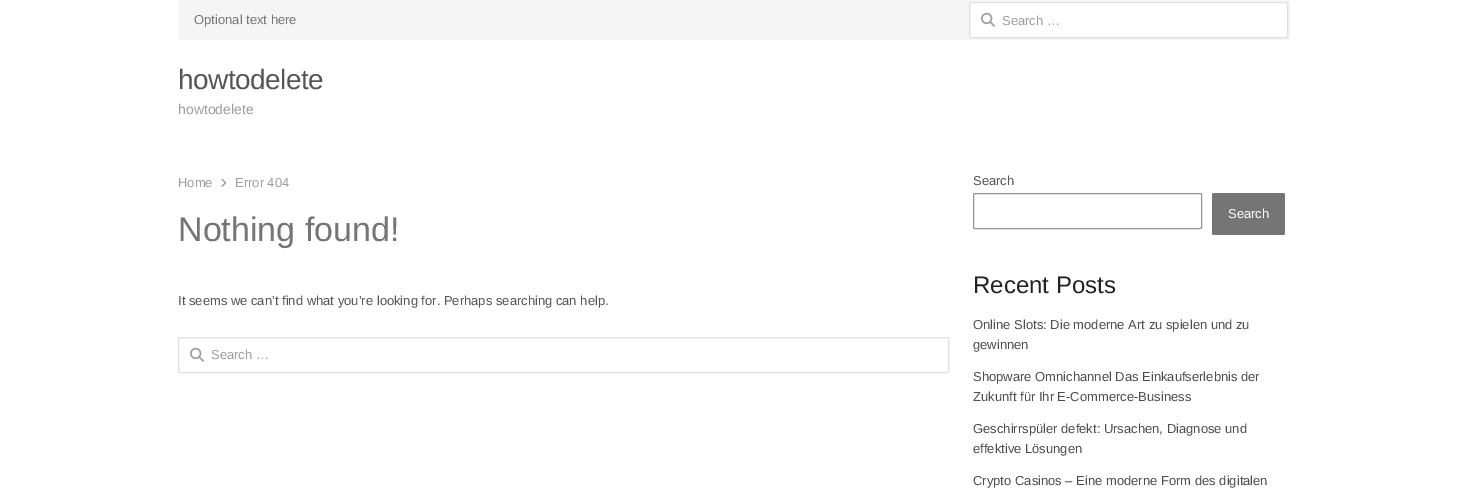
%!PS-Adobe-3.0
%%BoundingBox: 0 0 1467 500
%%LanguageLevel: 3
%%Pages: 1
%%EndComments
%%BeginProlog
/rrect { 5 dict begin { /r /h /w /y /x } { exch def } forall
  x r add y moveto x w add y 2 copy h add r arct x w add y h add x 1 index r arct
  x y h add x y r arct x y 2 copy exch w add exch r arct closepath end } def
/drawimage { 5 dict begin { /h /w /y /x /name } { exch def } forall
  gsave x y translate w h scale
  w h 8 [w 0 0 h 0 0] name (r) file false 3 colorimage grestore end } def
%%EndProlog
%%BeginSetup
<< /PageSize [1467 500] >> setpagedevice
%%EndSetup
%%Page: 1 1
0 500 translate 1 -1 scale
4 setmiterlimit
1 setgray
0 0 1467 500 rectfill
0.961 setgray
178 0 1112 40 rectfill
1 setgray
969.5 2.5 318 35 1.5 rrect gsave fill grestore
0.878 setgray
stroke
(images/1.raw) 981 12 14 15 drawimage
(images/2.raw) 221 178 6 9 drawimage
178.5 337.5 770 35 1.5 rrect stroke
(images/1.raw) 190 347 14 15 drawimage
0.58 setgray
973.5 193.5 228 35 1.5 rrect stroke
0.459 setgray
1212 193 73 42 2 rrect fill
/LiberationSans-Regular [13 0 0 -13 0 0] selectfont
194 24 moveto (Optional text here) show
0.62 setgray
1002 25 moveto (Search …) show
/LiberationSans-Regular [28 0 0 -28 0 0] selectfont
0.333 setgray
178 89 moveto -0.5 0 (howtodelete) ashow
/LiberationSans-Regular [14 0 0 -14 0 0] selectfont
0.62 setgray
178 114 moveto (howtodelete) show
/LiberationSans-Regular [13 0 0 -13 0 0] selectfont
178 187 moveto (Home) show
235 187 moveto (Error 404) show
/LiberationSans-Regular [34 0 0 -34 0 0] selectfont
0.459 setgray
178 241 moveto (Nothing found!) show
/LiberationSans-Regular [13 0 0 -13 0 0] selectfont
0.333 setgray
178 305 moveto (It seems we can’t find what you’re looking for. Perhaps searching can help.) show
0.62 setgray
211 359 moveto (Search …) show
0.333 setgray
973 185 moveto (Search) show
1 setgray
1228 218 moveto (Search) show
/LiberationSans-Regular [24 0 0 -24 0 0] selectfont
0.133 setgray
973 293 moveto (Recent Posts) show
/LiberationSans-Regular [13 0 0 -13 0 0] selectfont
0.302 setgray
973 329 moveto (Online Slots: Die moderne Art zu spielen und zu) show
973 349 moveto (gewinnen) show
973 381 moveto (Shopware Omnichannel Das Einkaufserlebnis der) show
973 401 moveto (Zukunft für Ihr E-Commerce-Business) show
973 433 moveto (Geschirrspüler defekt: Ursachen, Diagnose und) show
973 453 moveto (effektive Lösungen) show
973 485 moveto (Crypto Casinos – Eine moderne Form des digitalen) show
showpage
%%EOF
